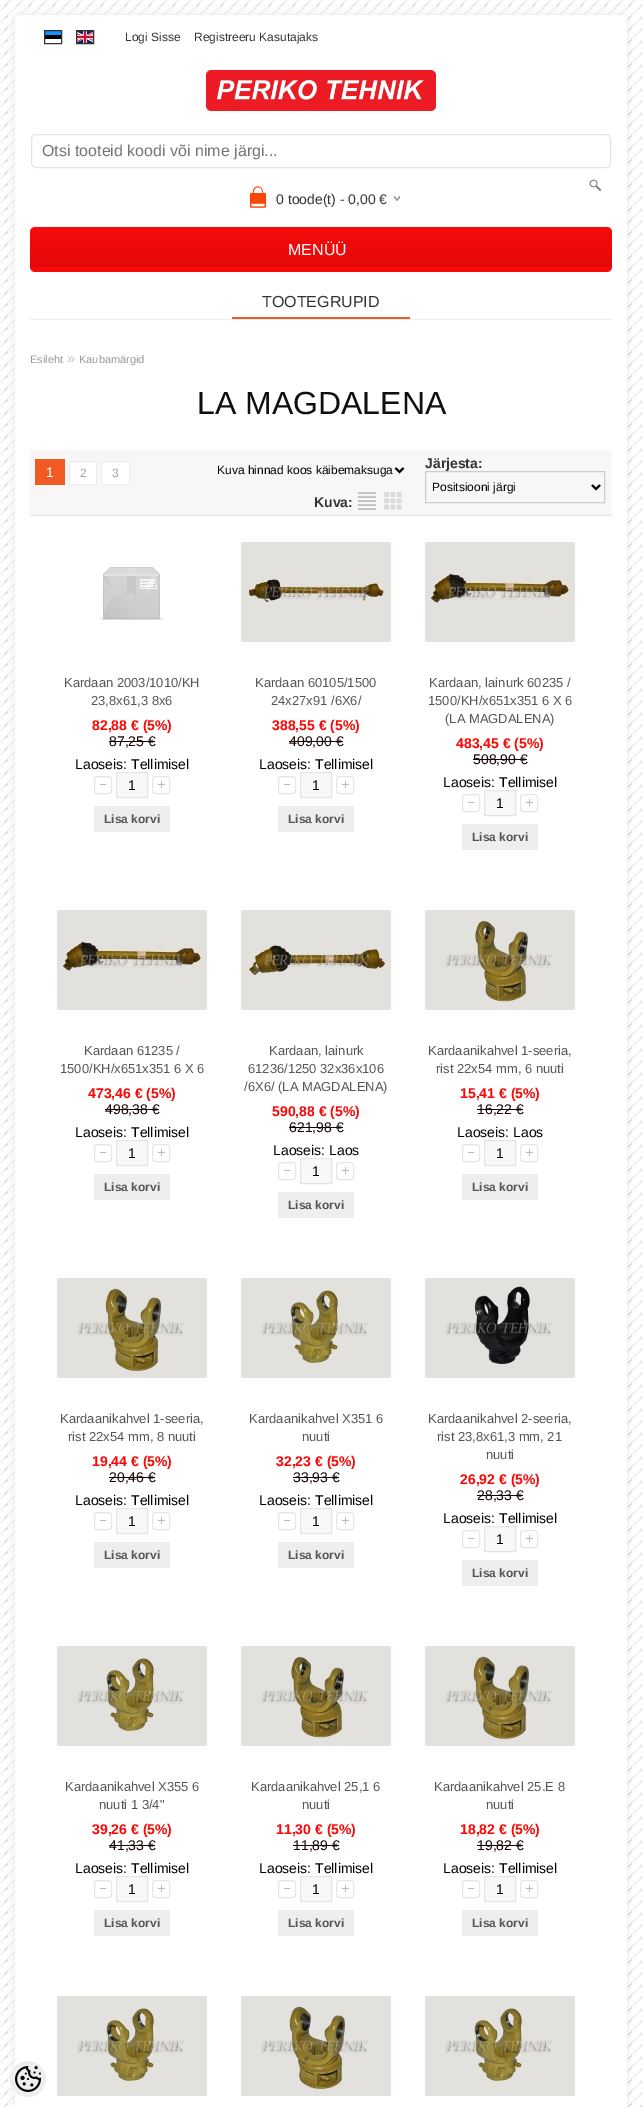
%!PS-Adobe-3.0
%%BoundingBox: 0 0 642 2107
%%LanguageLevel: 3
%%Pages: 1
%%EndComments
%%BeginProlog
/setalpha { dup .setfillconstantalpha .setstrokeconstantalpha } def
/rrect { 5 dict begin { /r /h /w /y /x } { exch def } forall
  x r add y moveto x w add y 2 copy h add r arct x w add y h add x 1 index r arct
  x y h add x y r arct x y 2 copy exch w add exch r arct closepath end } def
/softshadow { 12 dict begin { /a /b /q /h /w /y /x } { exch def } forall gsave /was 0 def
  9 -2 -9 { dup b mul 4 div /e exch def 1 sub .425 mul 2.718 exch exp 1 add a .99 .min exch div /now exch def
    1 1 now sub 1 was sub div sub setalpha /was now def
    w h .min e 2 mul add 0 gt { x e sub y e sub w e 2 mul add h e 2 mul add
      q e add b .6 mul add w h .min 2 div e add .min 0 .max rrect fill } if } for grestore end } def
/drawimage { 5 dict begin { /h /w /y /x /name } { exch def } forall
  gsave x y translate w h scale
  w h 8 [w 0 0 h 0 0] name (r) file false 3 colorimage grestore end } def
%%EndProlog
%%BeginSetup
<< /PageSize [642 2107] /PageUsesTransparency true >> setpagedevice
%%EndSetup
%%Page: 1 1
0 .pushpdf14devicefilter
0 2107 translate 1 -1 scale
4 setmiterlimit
1 setgray
0 0 642 2107 rectfill
(images/1.raw) 0 0 642 2107 drawimage
0 setgray
15 15 612 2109 5 4 0.08 softshadow
1 setgray
newpath 20 15 moveto 622 15 lineto 625 15 627 17 627 20 curveto 627 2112 lineto 15 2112 lineto 15 20 lineto 15 17 17 15 20 15 curveto closepath fill
0 setgray
45 35 16 4 rectfill
0.071 0.569 1 setrgbcolor
45 31 16 4 rectfill
0.2 setgray
44.5 30.5 17 13 rectstroke
(images/2.raw) 77 31 16 12 drawimage
76.5 30.5 17 13 rectstroke
(images/3.raw) 206 70 230 41 drawimage
0.894 setgray
31.5 134.5 579 33 4.5 rrect stroke
(images/4.raw) 589 179 13 12 drawimage
0.98 0.275 0.02 setrgbcolor
249 186 18 22 rectfill
(images/5.raw) 242 182 32 32 drawimage
(images/6.raw) 394 196 6 5 drawimage
0.969 0.039 0.039 setrgbcolor
30 227 582 45 5 rrect fill
(images/7.raw) 30 232 582 35 drawimage
0.933 setgray
30 319 582 1 rectfill
0.945 0.353 0.137 setrgbcolor
232 317 178 2 rectfill
0.973 0.965 0.965 setrgbcolor
30 450 582 65 rectfill
0.894 setgray
30 515 582 1 rectfill
0.945 0.353 0.137 setrgbcolor
35 459 30 26 rectfill
1 setgray
newpath 69.5 461.5 moveto 96.5 461.5 lineto 96.5 484.5 lineto 69.5 484.5 lineto closepath gsave fill grestore
0.933 setgray
stroke
1 setgray
newpath 101.5 461.5 moveto 129.5 461.5 lineto 129.5 484.5 lineto 101.5 484.5 lineto closepath gsave fill grestore
0.933 setgray
stroke
0 setgray
2 setlinewidth
newpath 395.5 468 moveto 399.5 472 lineto 403.5 468 lineto stroke
0.8 setgray
1 setlinewidth
425.5 471.5 179 31 rectstroke
0 setgray
2 setlinewidth
newpath 592 485 moveto 596 489 lineto 600 485 lineto stroke
(images/8.raw) 358 492 18 18 drawimage
(images/9.raw) 384 492 18 18 drawimage
(images/10.raw) 100 567 63 53 drawimage
0.09 0.012 0.012 setrgbcolor
109 741 46 1 rectfill
(images/11.raw) 99 784 8 1 drawimage
0.902 setgray
1 setlinewidth
94.5 776.5 17 17 2.5 rrect stroke
0.973 setgray
newpath 116.5 772.5 moveto 147.5 772.5 lineto 147.5 797.5 lineto 116.5 797.5 lineto closepath gsave fill grestore
0.894 setgray
stroke
(images/12.raw) 157 781 8 7 drawimage
0.902 setgray
152.5 776.5 17 17 2.5 rrect stroke
0.933 setgray
94 806 76 26 2 rrect fill
(images/13.raw) 241 542 150 100 drawimage
0.09 0.012 0.012 setrgbcolor
289 741 54 1 rectfill
(images/11.raw) 283 784 8 1 drawimage
0.902 setgray
278.5 776.5 17 17 2.5 rrect stroke
0.973 setgray
newpath 300.5 772.5 moveto 331.5 772.5 lineto 331.5 797.5 lineto 300.5 797.5 lineto closepath gsave fill grestore
0.894 setgray
stroke
(images/12.raw) 341 781 8 7 drawimage
0.902 setgray
336.5 776.5 17 17 2.5 rrect stroke
0.933 setgray
278 806 76 26 2 rrect fill
(images/14.raw) 425 542 150 100 drawimage
0.09 0.012 0.012 setrgbcolor
473 759 54 1 rectfill
(images/11.raw) 467 802 8 1 drawimage
0.902 setgray
462.5 794.5 17 17 2.5 rrect stroke
0.973 setgray
newpath 484.5 790.5 moveto 515.5 790.5 lineto 515.5 815.5 lineto 484.5 815.5 lineto closepath gsave fill grestore
0.894 setgray
stroke
(images/12.raw) 525 799 8 7 drawimage
0.902 setgray
520.5 794.5 17 17 2.5 rrect stroke
0.933 setgray
462 824 76 26 2 rrect fill
(images/14.raw) 57 910 150 100 drawimage
0.09 0.012 0.012 setrgbcolor
105 1109 54 1 rectfill
(images/11.raw) 99 1152 8 1 drawimage
0.902 setgray
94.5 1144.5 17 17 2.5 rrect stroke
0.973 setgray
newpath 116.5 1140.5 moveto 147.5 1140.5 lineto 147.5 1165.5 lineto 116.5 1165.5 lineto closepath gsave fill grestore
0.894 setgray
stroke
(images/12.raw) 157 1149 8 7 drawimage
0.902 setgray
152.5 1144.5 17 17 2.5 rrect stroke
0.933 setgray
94 1174 76 26 2 rrect fill
(images/15.raw) 241 910 150 100 drawimage
0.09 0.012 0.012 setrgbcolor
289 1127 54 1 rectfill
(images/11.raw) 283 1170 8 1 drawimage
0.902 setgray
278.5 1162.5 17 17 2.5 rrect stroke
0.973 setgray
newpath 300.5 1158.5 moveto 331.5 1158.5 lineto 331.5 1183.5 lineto 300.5 1183.5 lineto closepath gsave fill grestore
0.894 setgray
stroke
(images/12.raw) 341 1167 8 7 drawimage
0.902 setgray
336.5 1162.5 17 17 2.5 rrect stroke
0.933 setgray
278 1192 76 26 2 rrect fill
(images/16.raw) 425 910 150 102 drawimage
0.09 0.012 0.012 setrgbcolor
477 1109 46 1 rectfill
(images/11.raw) 467 1152 8 1 drawimage
0.902 setgray
462.5 1144.5 17 17 2.5 rrect stroke
0.973 setgray
newpath 484.5 1140.5 moveto 515.5 1140.5 lineto 515.5 1165.5 lineto 484.5 1165.5 lineto closepath gsave fill grestore
0.894 setgray
stroke
(images/12.raw) 525 1149 8 7 drawimage
0.902 setgray
520.5 1144.5 17 17 2.5 rrect stroke
0.933 setgray
462 1174 76 26 2 rrect fill
(images/17.raw) 57 1278 150 101 drawimage
0.09 0.012 0.012 setrgbcolor
109 1477 46 1 rectfill
(images/11.raw) 99 1520 8 1 drawimage
0.902 setgray
94.5 1512.5 17 17 2.5 rrect stroke
0.973 setgray
newpath 116.5 1508.5 moveto 147.5 1508.5 lineto 147.5 1533.5 lineto 116.5 1533.5 lineto closepath gsave fill grestore
0.894 setgray
stroke
(images/12.raw) 157 1517 8 7 drawimage
0.902 setgray
152.5 1512.5 17 17 2.5 rrect stroke
0.933 setgray
94 1542 76 26 2 rrect fill
(images/18.raw) 241 1278 150 100 drawimage
0.09 0.012 0.012 setrgbcolor
293 1477 46 1 rectfill
(images/11.raw) 283 1520 8 1 drawimage
0.902 setgray
278.5 1512.5 17 17 2.5 rrect stroke
0.973 setgray
newpath 300.5 1508.5 moveto 331.5 1508.5 lineto 331.5 1533.5 lineto 300.5 1533.5 lineto closepath gsave fill grestore
0.894 setgray
stroke
(images/12.raw) 341 1517 8 7 drawimage
0.902 setgray
336.5 1512.5 17 17 2.5 rrect stroke
0.933 setgray
278 1542 76 26 2 rrect fill
(images/19.raw) 425 1278 150 100 drawimage
0.09 0.012 0.012 setrgbcolor
477 1495 46 1 rectfill
(images/11.raw) 467 1538 8 1 drawimage
0.902 setgray
462.5 1530.5 17 17 2.5 rrect stroke
0.973 setgray
newpath 484.5 1526.5 moveto 515.5 1526.5 lineto 515.5 1551.5 lineto 484.5 1551.5 lineto closepath gsave fill grestore
0.894 setgray
stroke
(images/12.raw) 525 1535 8 7 drawimage
0.902 setgray
520.5 1530.5 17 17 2.5 rrect stroke
0.933 setgray
462 1560 76 26 2 rrect fill
(images/20.raw) 57 1646 150 100 drawimage
0.09 0.012 0.012 setrgbcolor
109 1845 46 1 rectfill
(images/11.raw) 99 1888 8 1 drawimage
0.902 setgray
94.5 1880.5 17 17 2.5 rrect stroke
0.973 setgray
newpath 116.5 1876.5 moveto 147.5 1876.5 lineto 147.5 1901.5 lineto 116.5 1901.5 lineto closepath gsave fill grestore
0.894 setgray
stroke
(images/12.raw) 157 1885 8 7 drawimage
0.902 setgray
152.5 1880.5 17 17 2.5 rrect stroke
0.933 setgray
94 1910 76 26 2 rrect fill
(images/16.raw) 241 1646 150 102 drawimage
0.09 0.012 0.012 setrgbcolor
293 1845 46 1 rectfill
(images/11.raw) 283 1888 8 1 drawimage
0.902 setgray
278.5 1880.5 17 17 2.5 rrect stroke
0.973 setgray
newpath 300.5 1876.5 moveto 331.5 1876.5 lineto 331.5 1901.5 lineto 300.5 1901.5 lineto closepath gsave fill grestore
0.894 setgray
stroke
(images/12.raw) 341 1885 8 7 drawimage
0.902 setgray
336.5 1880.5 17 17 2.5 rrect stroke
0.933 setgray
278 1910 76 26 2 rrect fill
(images/21.raw) 425 1646 150 100 drawimage
0.09 0.012 0.012 setrgbcolor
477 1845 46 1 rectfill
(images/11.raw) 467 1888 8 1 drawimage
0.902 setgray
462.5 1880.5 17 17 2.5 rrect stroke
0.973 setgray
newpath 484.5 1876.5 moveto 515.5 1876.5 lineto 515.5 1901.5 lineto 484.5 1901.5 lineto closepath gsave fill grestore
0.894 setgray
stroke
(images/12.raw) 525 1885 8 7 drawimage
0.902 setgray
520.5 1880.5 17 17 2.5 rrect stroke
0.933 setgray
462 1910 76 26 2 rrect fill
(images/20.raw) 57 1996 150 100 drawimage
(images/21.raw) 241 1996 150 100 drawimage
(images/20.raw) 425 1996 150 100 drawimage
newpath 28 2079 18 0 360 arc closepath fill
(images/22.raw) 15 2066 26 26 drawimage
/LiberationSans-Regular [12 0 0 -12 0 0] selectfont
0.2 setgray
125 41 moveto (Logi Sisse) show
194 41 moveto (Registreeru Kasutajaks) show
/LiberationSans-Regular [16 0 0 -16 0 0] selectfont
0.459 setgray
42 156 moveto (Otsi tooteid koodi või nime järgi...) show
/LiberationSans-Regular [14 0 0 -14 0 0] selectfont
0.2 setgray
276 204 moveto (0 toode\(t\) - 0,00 €) show
/LiberationSans-Regular [16 0 0 -16 0 0] selectfont
1 setgray
288 255 moveto (MENÜÜ) show
0.2 setgray
262 307 moveto (TOOTEGRUPID) show
/LiberationSans-Regular [11 0 0 -11 0 0] selectfont
0.6 setgray
30 363 moveto (Esileht) show
/LiberationSans-Regular [14 0 0 -14 0 0] selectfont
0.761 setgray
67 363 moveto (») show
/LiberationSans-Regular [11 0 0 -11 0 0] selectfont
0.6 setgray
79 363 moveto (Kaubamärgid) show
/LiberationSans-Regular [32 0 0 -32 0 0] selectfont
0.059 setgray
197 414 moveto (LA MAGDALENA) show
/LiberationSans-Regular [14 0 0 -14 0 0] selectfont
1 setgray
46 477 moveto (1) show
/LiberationSans-Regular [12 0 0 -12 0 0] selectfont
0.639 setgray
80 477 moveto (2) show
112 477 moveto (3) show
0 setgray
217 474 moveto (Kuva hinnad koos käibemaksuga) show
/LiberationSans-Bold [14 0 0 -14 0 0] selectfont
0.2 setgray
425 468 moveto (Järjesta:) show
/LiberationSans-Regular [12 0 0 -12 0 0] selectfont
0 setgray
432 491 moveto (Positsiooni järgi) show
/LiberationSans-Bold [14 0 0 -14 0 0] selectfont
0.2 setgray
314 507 moveto (Kuva:) show
/LiberationSans-Regular [13 0 0 -13 0 0] selectfont
0.333 setgray
64 687 moveto (Kardaan 2003/1010/KH) show
91 705 moveto (23,8x61,3 8x6) show
/LiberationSans-Bold [14 0 0 -14 0 0] selectfont
0.988 0.02 0.02 setrgbcolor
92 730 moveto (82,88 € \(5%\)) show
/LiberationSans-Regular [14 0 0 -14 0 0] selectfont
0.09 0.012 0.012 setrgbcolor
109 746 moveto (87,25 €) show
0 setgray
75 769 moveto (Laoseis: Tellimisel) show
128 790 moveto (1) show
/LiberationSans-Bold [12 0 0 -12 0 0] selectfont
0.333 setgray
104 823 moveto (Lisa korvi) show
/LiberationSans-Regular [13 0 0 -13 0 0] selectfont
255 687 moveto (Kardaan 60105/1500) show
271 705 moveto (24x27x91 /6X6/) show
/LiberationSans-Bold [14 0 0 -14 0 0] selectfont
0.988 0.02 0.02 setrgbcolor
272 730 moveto (388,55 € \(5%\)) show
/LiberationSans-Regular [14 0 0 -14 0 0] selectfont
0.09 0.012 0.012 setrgbcolor
289 746 moveto (409,00 €) show
0 setgray
259 769 moveto (Laoseis: Tellimisel) show
312 790 moveto (1) show
/LiberationSans-Bold [12 0 0 -12 0 0] selectfont
0.333 setgray
288 823 moveto (Lisa korvi) show
/LiberationSans-Regular [13 0 0 -13 0 0] selectfont
429 687 moveto (Kardaan, lainurk 60235 /) show
428 705 moveto (1500/KH/x651x351 6 X 6) show
445 723 moveto (\(LA MAGDALENA\)) show
/LiberationSans-Bold [14 0 0 -14 0 0] selectfont
0.988 0.02 0.02 setrgbcolor
456 748 moveto (483,45 € \(5%\)) show
/LiberationSans-Regular [14 0 0 -14 0 0] selectfont
0.09 0.012 0.012 setrgbcolor
473 764 moveto (508,90 €) show
0 setgray
443 787 moveto (Laoseis: Tellimisel) show
496 808 moveto (1) show
/LiberationSans-Bold [12 0 0 -12 0 0] selectfont
0.333 setgray
472 841 moveto (Lisa korvi) show
/LiberationSans-Regular [13 0 0 -13 0 0] selectfont
84 1055 moveto (Kardaan 61235 /) show
60 1073 moveto (1500/KH/x651x351 6 X 6) show
/LiberationSans-Bold [14 0 0 -14 0 0] selectfont
0.988 0.02 0.02 setrgbcolor
88 1098 moveto (473,46 € \(5%\)) show
/LiberationSans-Regular [14 0 0 -14 0 0] selectfont
0.09 0.012 0.012 setrgbcolor
105 1114 moveto (498,38 €) show
0 setgray
75 1137 moveto (Laoseis: Tellimisel) show
128 1158 moveto (1) show
/LiberationSans-Bold [12 0 0 -12 0 0] selectfont
0.333 setgray
104 1191 moveto (Lisa korvi) show
/LiberationSans-Regular [13 0 0 -13 0 0] selectfont
269 1055 moveto (Kardaan, lainurk) show
248 1073 moveto (61236/1250 32x36x106) show
244 1091 moveto (/6X6/ \(LA MAGDALENA\)) show
/LiberationSans-Bold [14 0 0 -14 0 0] selectfont
0.988 0.02 0.02 setrgbcolor
272 1116 moveto (590,88 € \(5%\)) show
/LiberationSans-Regular [14 0 0 -14 0 0] selectfont
0.09 0.012 0.012 setrgbcolor
289 1132 moveto (621,98 €) show
0 setgray
273 1155 moveto (Laoseis: Laos) show
312 1176 moveto (1) show
/LiberationSans-Bold [12 0 0 -12 0 0] selectfont
0.333 setgray
288 1209 moveto (Lisa korvi) show
/LiberationSans-Regular [13 0 0 -13 0 0] selectfont
428 1055 moveto (Kardaanikahvel 1-seeria,) show
436 1073 moveto (rist 22x54 mm, 6 nuuti) show
/LiberationSans-Bold [14 0 0 -14 0 0] selectfont
0.988 0.02 0.02 setrgbcolor
460 1098 moveto (15,41 € \(5%\)) show
/LiberationSans-Regular [14 0 0 -14 0 0] selectfont
0.09 0.012 0.012 setrgbcolor
477 1114 moveto (16,22 €) show
0 setgray
457 1137 moveto (Laoseis: Laos) show
496 1158 moveto (1) show
/LiberationSans-Bold [12 0 0 -12 0 0] selectfont
0.333 setgray
472 1191 moveto (Lisa korvi) show
/LiberationSans-Regular [13 0 0 -13 0 0] selectfont
60 1423 moveto (Kardaanikahvel 1-seeria,) show
68 1441 moveto (rist 22x54 mm, 8 nuuti) show
/LiberationSans-Bold [14 0 0 -14 0 0] selectfont
0.988 0.02 0.02 setrgbcolor
92 1466 moveto (19,44 € \(5%\)) show
/LiberationSans-Regular [14 0 0 -14 0 0] selectfont
0.09 0.012 0.012 setrgbcolor
109 1482 moveto (20,46 €) show
0 setgray
75 1505 moveto (Laoseis: Tellimisel) show
128 1526 moveto (1) show
/LiberationSans-Bold [12 0 0 -12 0 0] selectfont
0.333 setgray
104 1559 moveto (Lisa korvi) show
/LiberationSans-Regular [13 0 0 -13 0 0] selectfont
249 1423 moveto (Kardaanikahvel X351 6) show
302 1441 moveto (nuuti) show
/LiberationSans-Bold [14 0 0 -14 0 0] selectfont
0.988 0.02 0.02 setrgbcolor
276 1466 moveto (32,23 € \(5%\)) show
/LiberationSans-Regular [14 0 0 -14 0 0] selectfont
0.09 0.012 0.012 setrgbcolor
293 1482 moveto (33,93 €) show
0 setgray
259 1505 moveto (Laoseis: Tellimisel) show
312 1526 moveto (1) show
/LiberationSans-Bold [12 0 0 -12 0 0] selectfont
0.333 setgray
288 1559 moveto (Lisa korvi) show
/LiberationSans-Regular [13 0 0 -13 0 0] selectfont
428 1423 moveto (Kardaanikahvel 2-seeria,) show
437 1441 moveto (rist 23,8x61,3 mm, 21) show
486 1459 moveto (nuuti) show
/LiberationSans-Bold [14 0 0 -14 0 0] selectfont
0.988 0.02 0.02 setrgbcolor
460 1484 moveto (26,92 € \(5%\)) show
/LiberationSans-Regular [14 0 0 -14 0 0] selectfont
0.09 0.012 0.012 setrgbcolor
477 1500 moveto (28,33 €) show
0 setgray
443 1523 moveto (Laoseis: Tellimisel) show
496 1544 moveto (1) show
/LiberationSans-Bold [12 0 0 -12 0 0] selectfont
0.333 setgray
472 1577 moveto (Lisa korvi) show
/LiberationSans-Regular [13 0 0 -13 0 0] selectfont
65 1791 moveto (Kardaanikahvel X355 6) show
99 1809 moveto (nuuti 1 3/4") show
/LiberationSans-Bold [14 0 0 -14 0 0] selectfont
0.988 0.02 0.02 setrgbcolor
92 1834 moveto (39,26 € \(5%\)) show
/LiberationSans-Regular [14 0 0 -14 0 0] selectfont
0.09 0.012 0.012 setrgbcolor
109 1850 moveto (41,33 €) show
0 setgray
75 1873 moveto (Laoseis: Tellimisel) show
128 1894 moveto (1) show
/LiberationSans-Bold [12 0 0 -12 0 0] selectfont
0.333 setgray
104 1927 moveto (Lisa korvi) show
/LiberationSans-Regular [13 0 0 -13 0 0] selectfont
251 1791 moveto (Kardaanikahvel 25,1 6) show
302 1809 moveto (nuuti) show
/LiberationSans-Bold [14 0 0 -14 0 0] selectfont
0.988 0.02 0.02 setrgbcolor
276 1834 moveto (11,30 € \(5%\)) show
/LiberationSans-Regular [14 0 0 -14 0 0] selectfont
0.09 0.012 0.012 setrgbcolor
293 1850 moveto (11,89 €) show
0 setgray
259 1873 moveto (Laoseis: Tellimisel) show
312 1894 moveto (1) show
/LiberationSans-Bold [12 0 0 -12 0 0] selectfont
0.333 setgray
288 1927 moveto (Lisa korvi) show
/LiberationSans-Regular [13 0 0 -13 0 0] selectfont
434 1791 moveto (Kardaanikahvel 25.E 8) show
486 1809 moveto (nuuti) show
/LiberationSans-Bold [14 0 0 -14 0 0] selectfont
0.988 0.02 0.02 setrgbcolor
460 1834 moveto (18,82 € \(5%\)) show
/LiberationSans-Regular [14 0 0 -14 0 0] selectfont
0.09 0.012 0.012 setrgbcolor
477 1850 moveto (19,82 €) show
0 setgray
443 1873 moveto (Laoseis: Tellimisel) show
496 1894 moveto (1) show
/LiberationSans-Bold [12 0 0 -12 0 0] selectfont
0.333 setgray
472 1927 moveto (Lisa korvi) show
.poppdf14devicefilter showpage
%%EOF
